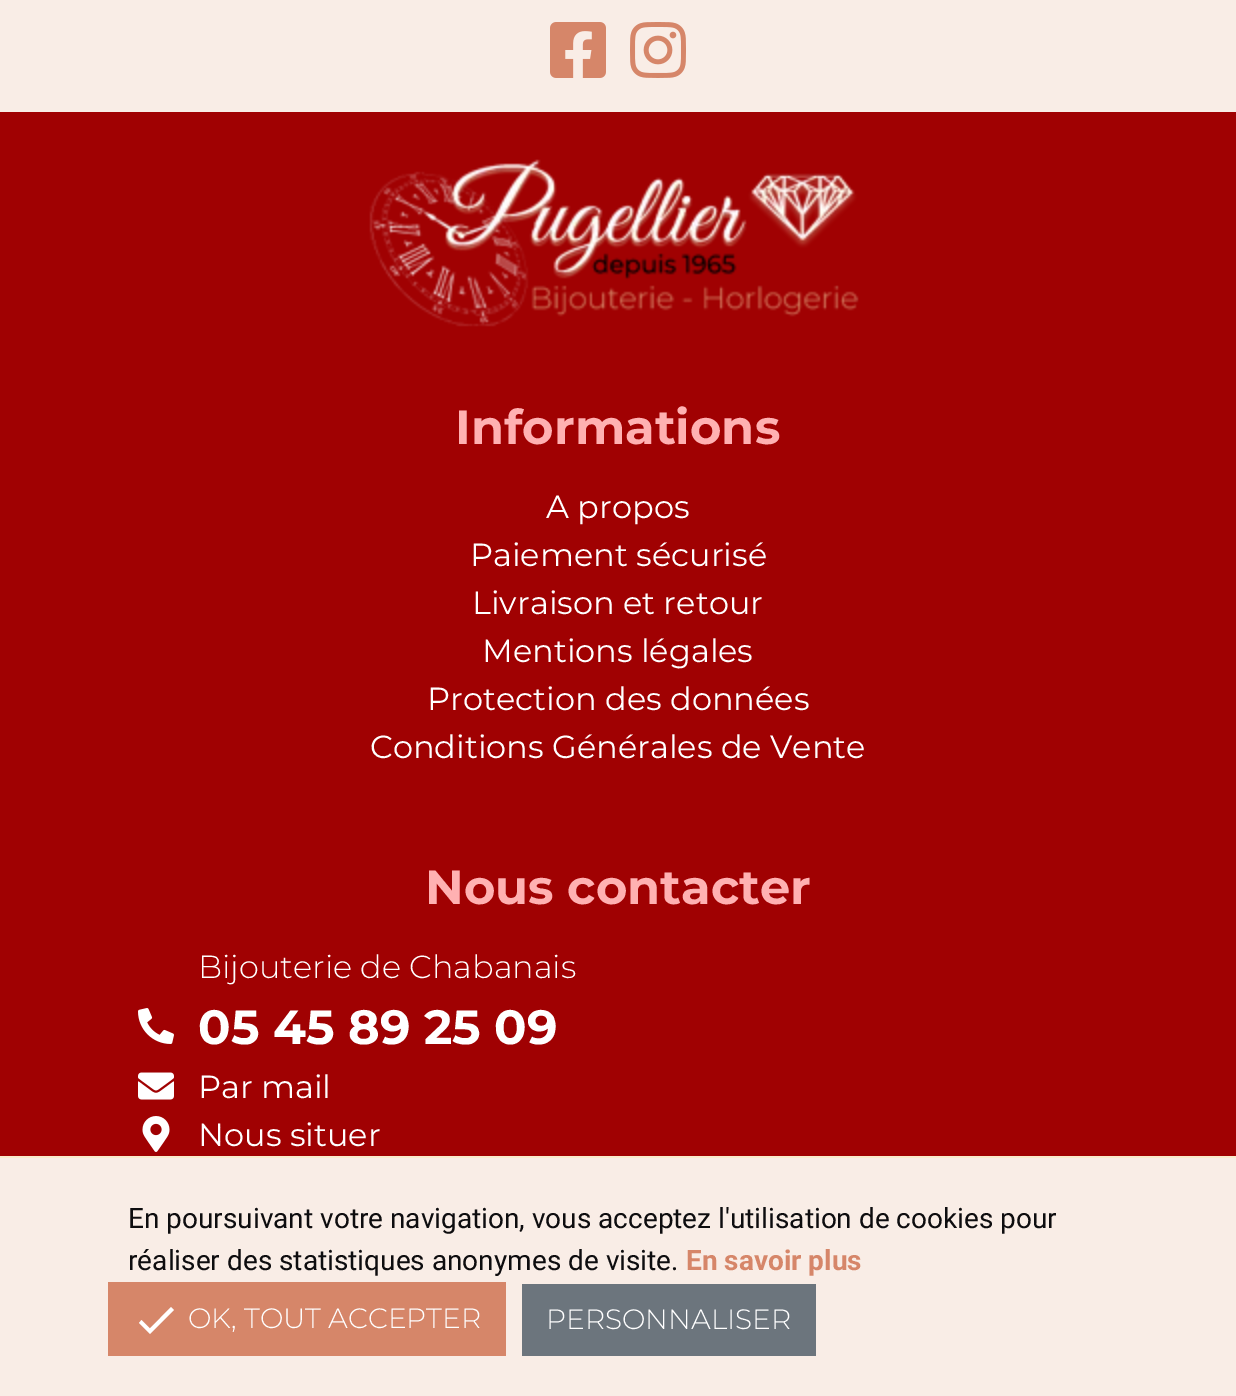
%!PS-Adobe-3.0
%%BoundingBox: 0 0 1236 1396
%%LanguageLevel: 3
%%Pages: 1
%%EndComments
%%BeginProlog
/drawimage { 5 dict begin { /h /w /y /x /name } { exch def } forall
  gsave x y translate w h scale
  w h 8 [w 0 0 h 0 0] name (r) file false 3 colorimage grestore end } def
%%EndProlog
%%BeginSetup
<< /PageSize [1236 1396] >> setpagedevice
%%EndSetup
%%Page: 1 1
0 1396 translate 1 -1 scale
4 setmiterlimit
0.976 0.929 0.902 setrgbcolor
0 0 1236 1396 rectfill
(images/1.raw) 550 22 56 56 drawimage
(images/2.raw) 630 22 56 56 drawimage
0.627 0.004 0.008 setrgbcolor
0 112 1236 1044 rectfill
(images/3.raw) 369 159 490 168 drawimage
(images/4.raw) 138 1008 36 36 drawimage
(images/5.raw) 138 1072 36 28 drawimage
(images/6.raw) 142 1116 28 36 drawimage
0.98 0.922 0.8 setrgbcolor
0 1156 1236 2 rectfill
0.839 0.525 0.412 setrgbcolor
108 1282 398 74 rectfill
1 setgray
newpath 150 1328.5 moveto 171 1307 lineto 174 1310 lineto 150 1334 lineto 139 1323 lineto 141.5 1320 lineto closepath fill
0.424 0.459 0.49 setrgbcolor
522 1284 294 72 rectfill
/Montserrat-Bold [48 0 0 -48 0 0] selectfont
1 0.694 0.698 setrgbcolor
455 444 moveto (Informations) show
/Montserrat-Regular [32 0 0 -32 0 0] selectfont
1 setgray
546 518 moveto (A propos) show
470 566 moveto (Paiement sécurisé) show
472 614 moveto (Livraison et retour) show
482 662 moveto (Mentions légales) show
427 710 moveto (Protection des données) show
370 758 moveto (Conditions Générales de Vente) show
/Montserrat-Bold [48 0 0 -48 0 0] selectfont
1 0.694 0.698 setrgbcolor
425 904 moveto (Nous contacter) show
/Montserrat-Light [32 0 0 -32 0 0] selectfont
1 setgray
198 978 moveto (Bijouterie de Chabanais) show
/Montserrat-Bold [48 0 0 -48 0 0] selectfont
198 1044 moveto (05 45 89 25 09) show
/Montserrat-Regular [32 0 0 -32 0 0] selectfont
198 1098 moveto (Par mail) show
198 1146 moveto (Nous situer) show
/Roboto-Regular [28 0 0 -28 0 0] selectfont
0.055 0.051 0.059 setrgbcolor
128 1228 moveto (En poursuivant votre navigation, vous acceptez l'utilisation de cookies pour) show
128 1270 moveto (réaliser des statistiques anonymes de visite.) show
/Roboto-Bold [28 0 0 -28 0 0] selectfont
0.839 0.525 0.412 setrgbcolor
686 1270 moveto (En savoir plus) show
/Montserrat-Light [28 0 0 -28 0 0] selectfont
1 setgray
188 1328 moveto (OK, TOUT ACCEPTER) show
546 1329 moveto (PERSONNALISER) show
showpage
%%EOF
